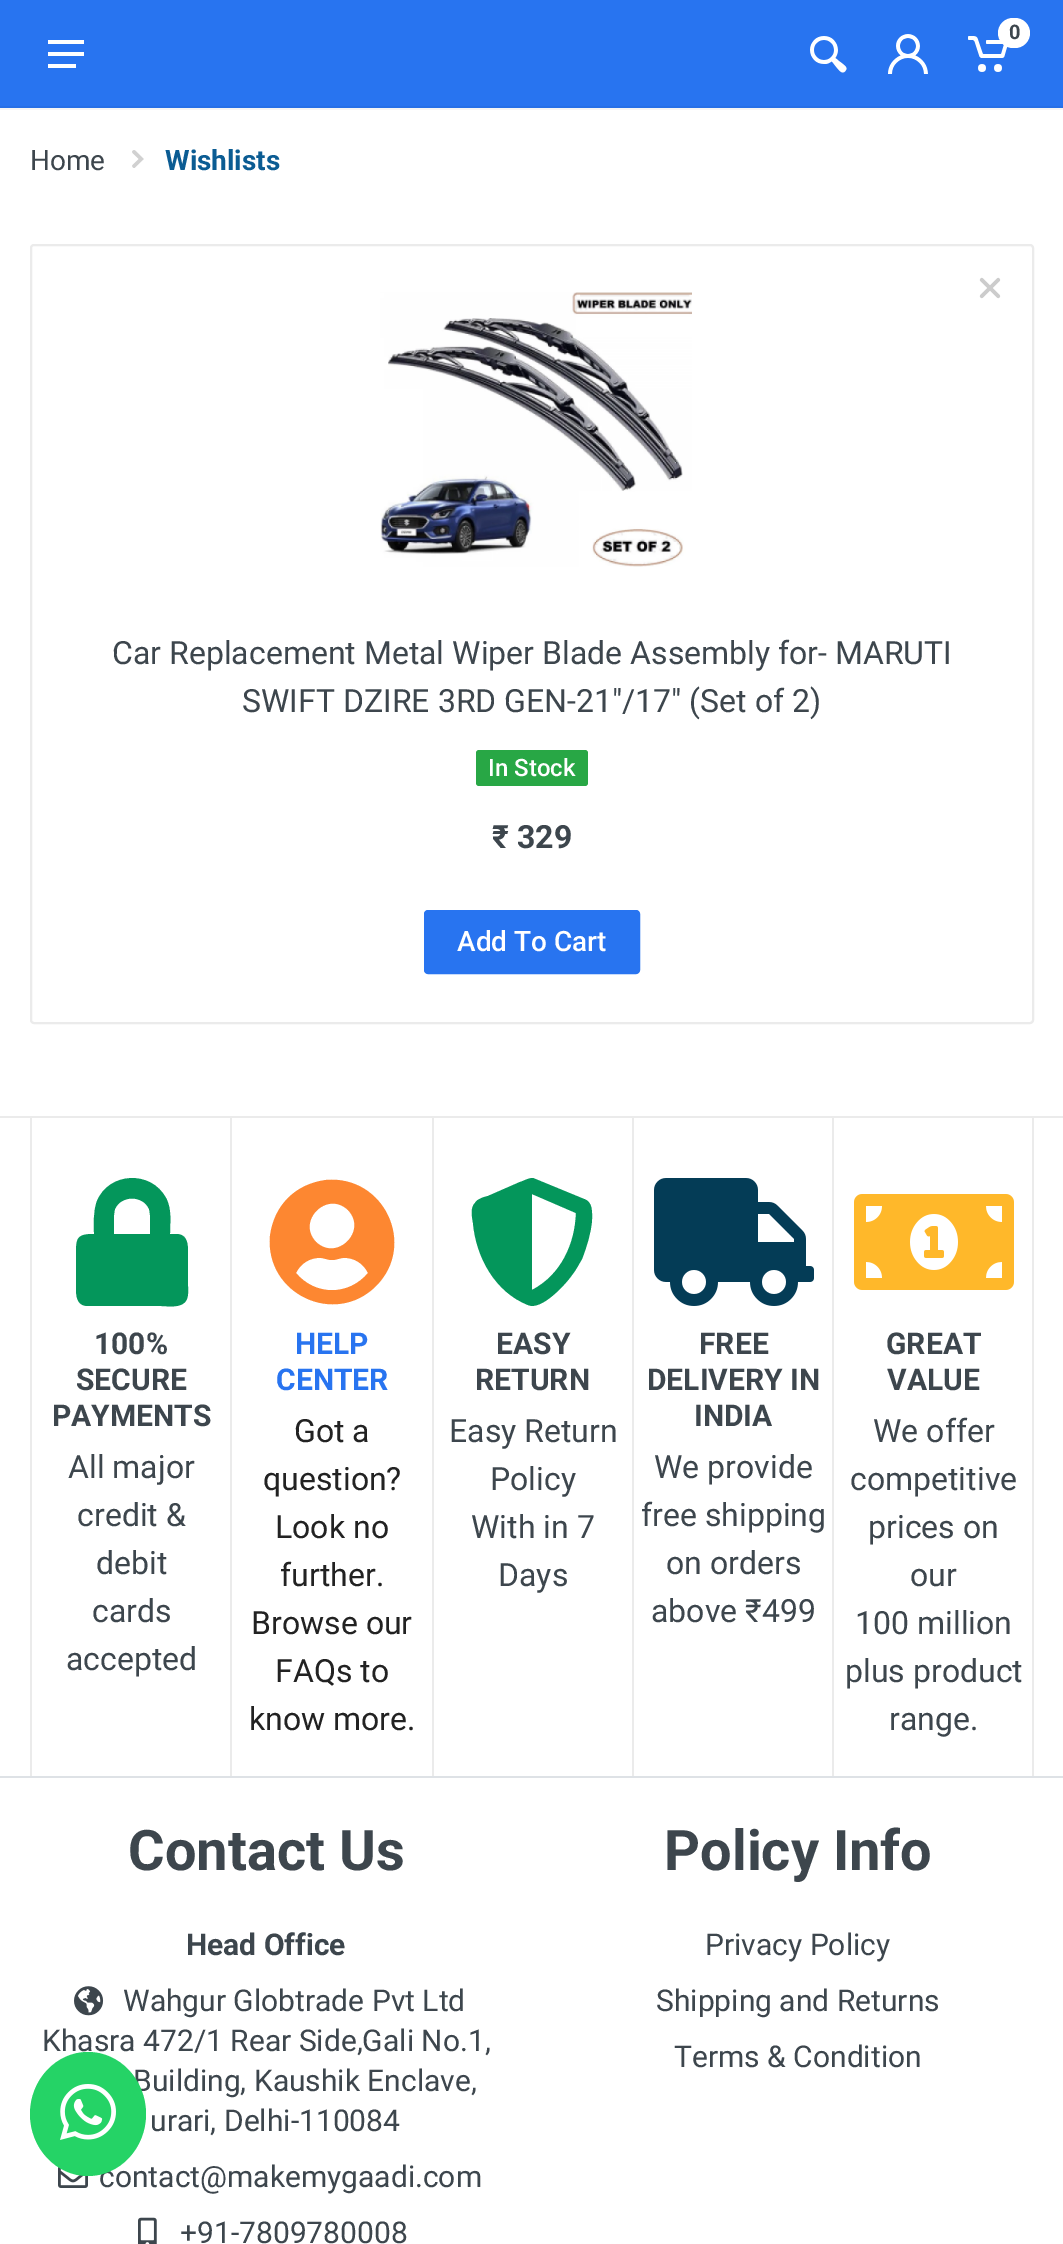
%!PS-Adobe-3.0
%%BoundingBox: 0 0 1063 2244
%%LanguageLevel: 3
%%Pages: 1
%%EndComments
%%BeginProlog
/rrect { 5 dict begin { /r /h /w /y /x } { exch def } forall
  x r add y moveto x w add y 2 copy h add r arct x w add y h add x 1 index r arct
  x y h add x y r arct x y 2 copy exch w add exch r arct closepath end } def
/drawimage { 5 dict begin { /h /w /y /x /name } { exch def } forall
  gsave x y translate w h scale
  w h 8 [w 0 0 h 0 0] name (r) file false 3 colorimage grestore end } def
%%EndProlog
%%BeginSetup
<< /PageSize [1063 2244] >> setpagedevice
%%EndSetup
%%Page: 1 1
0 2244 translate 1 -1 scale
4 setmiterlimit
1 setgray
0 0 1063 2244 rectfill
0.961 setgray
0 108 1063 2 rectfill
0.157 0.455 0.941 setrgbcolor
0 0 1063 106 rectfill
0.149 0.435 0.902 setrgbcolor
0 106 1063 2 rectfill
(images/1.raw) 968 36 40 36 drawimage
1 setgray
998 18 32 30 15 rrect fill
(images/2.raw) 810 36 37 37 drawimage
(images/3.raw) 888 34 40 40 drawimage
(images/4.raw) 48 40 36 28 drawimage
(images/5.raw) 132 150 12 18 drawimage
0.922 setgray
2 setlinewidth
31 245 1002 778 3 rrect stroke
(images/6.raw) 979 277 22 22 drawimage
(images/7.raw) 380 292 312 275 drawimage
0.157 0.655 0.271 setrgbcolor
476 750 112 36 3 rrect fill
0.157 0.455 0.941 setrgbcolor
425 911 214 62 3 rrect gsave fill grestore
stroke
0.922 setgray
0 1116 1063 2 rectfill
0.871 0.886 0.902 setrgbcolor
0 1776 1063 2 rectfill
0.922 setgray
30 1118 2 658 rectfill
0.016 0.588 0.357 setrgbcolor
newpath 176 1234 moveto 188 1234 188 1245 188 1254 curveto 188 1286 lineto 188 1292 189 1299 184 1303 curveto 178 1308 167 1306 161 1306 curveto 88 1306 lineto 76 1306 76 1295 76 1286 curveto 76 1254 lineto 76 1238 77 1234 94 1234 curveto 94 1223 93 1212 97 1201 curveto 109 1172 151 1170 166 1198 curveto 172 1209 170 1222 170 1234 curveto closepath 150 1234 moveto 150 1227 151 1216 149 1209 curveto 143 1195 121 1195 115 1209 curveto 113 1216 114 1227 114 1234 curveto closepath fill
0.922 setgray
230 1118 2 658 rectfill
0.992 0.529 0.192 setrgbcolor
newpath 288 1198 moveto 298 1188 311 1182 326 1180 curveto 384 1175 417 1245 376 1286 curveto 335 1327 265 1294 270 1236 curveto 272 1221 278 1208 288 1198 curveto closepath 348 1210 moveto 327 1190 296 1221 316 1242 curveto 337 1262 368 1231 348 1210 curveto closepath 296 1273 moveto 315 1296 349 1296 368 1273 curveto 364 1264 354 1257 343 1258 curveto 340 1258 336 1260 332 1260 curveto 328 1260 324 1258 321 1258 curveto 310 1257 300 1264 296 1273 curveto closepath fill
0.922 setgray
432 1118 2 658 rectfill
0.016 0.588 0.357 setrgbcolor
newpath 584 1199 moveto 593 1202 592 1212 592 1220 curveto 591 1233 587 1246 582 1259 curveto 579 1264 576 1270 572 1275 curveto 565 1285 541 1311 528 1305 curveto 495 1292 476 1257 473 1223 curveto 472 1217 470 1208 475 1203 curveto 477 1199 484 1197 488 1196 curveto 520 1182 lineto 524 1181 528 1178 533 1178 curveto closepath 532 1290 moveto 561 1275 575 1244 576 1213 curveto 532 1194 lineto closepath fill
0.922 setgray
632 1118 2 658 rectfill
(images/8.raw) 654 1178 160 128 drawimage
1032 1118 2 658 rectfill
832 1118 2 658 rectfill
(images/9.raw) 854 1194 160 96 drawimage
(images/10.raw) 74 1986 30 30 drawimage
(images/11.raw) 58 2167 30 21 drawimage
(images/12.raw) 138 2217 19 27 drawimage
/Roboto-Bold [20 0 0 -20 0 0] selectfont
0.239 0.275 0.302 setrgbcolor
1009 39 moveto (0) show
/Roboto-Regular [28 0 0 -28 0 0] selectfont
30 170 moveto (Home) show
/Roboto-Bold [28 0 0 -28 0 0] selectfont
0.043 0.361 0.576 setrgbcolor
165 170 moveto (Wishlists) show
/Roboto-Regular [32 0 0 -32 0 0] selectfont
0.239 0.275 0.302 setrgbcolor
112 664 moveto (Car Replacement Metal Wiper Blade Assembly for- MARUTI) show
242 712 moveto (SWIFT DZIRE 3RD GEN-21"/17" \(Set of 2\)) show
/Roboto-Medium [24 0 0 -24 0 0] selectfont
1 setgray
488 776 moveto (In Stock) show
/Roboto-Bold [32 0 0 -32 0 0] selectfont
0.239 0.275 0.302 setrgbcolor
492 848 moveto (₹ 329) show
/Roboto-Medium [28 0 0 -28 0 0] selectfont
1 setgray
457 951 moveto (Add To Cart) show
/Roboto-Bold [30 0 0 -30 0 0] selectfont
0.239 0.275 0.302 setrgbcolor
94 1354 moveto (100%) show
76 1390 moveto (SECURE) show
52 1426 moveto (PAYMENTS) show
/Roboto-Regular [32 0 0 -32 0 0] selectfont
68 1478 moveto (All major) show
77 1526 moveto (credit &) show
96 1574 moveto (debit) show
92 1622 moveto (cards) show
66 1670 moveto (accepted) show
/Roboto-Bold [30 0 0 -30 0 0] selectfont
0.157 0.455 0.941 setrgbcolor
295 1354 moveto (HELP) show
276 1390 moveto (CENTER) show
/Roboto-Regular [32 0 0 -32 0 0] selectfont
0.133 setgray
294 1442 moveto (Got a) show
263 1490 moveto (question?) show
275 1538 moveto (Look no) show
280 1586 moveto (further.) show
251 1634 moveto (Browse our) show
275 1682 moveto (FAQs to) show
249 1730 moveto (know more.) show
/Roboto-Bold [30 0 0 -30 0 0] selectfont
0.239 0.275 0.302 setrgbcolor
496 1354 moveto (EASY) show
475 1390 moveto (RETURN) show
/Roboto-Regular [32 0 0 -32 0 0] selectfont
449 1442 moveto (Easy Return) show
490 1490 moveto (Policy) show
471 1538 moveto (With in 7) show
498 1586 moveto (Days) show
/Roboto-Bold [30 0 0 -30 0 0] selectfont
699 1354 moveto (FREE) show
647 1390 moveto (DELIVERY IN) show
694 1426 moveto (INDIA) show
/Roboto-Regular [32 0 0 -32 0 0] selectfont
654 1478 moveto (We provide) show
641 1526 moveto (free shipping) show
666 1574 moveto (on orders) show
651 1622 moveto (above ₹499) show
/Roboto-Bold [30 0 0 -30 0 0] selectfont
886 1354 moveto (GREAT) show
887 1390 moveto (VALUE) show
/Roboto-Regular [32 0 0 -32 0 0] selectfont
873 1442 moveto (We offer) show
850 1490 moveto (competitive) show
868 1538 moveto (prices on) show
910 1586 moveto (our) show
855 1634 moveto (100 million) show
845 1682 moveto (plus product) show
889 1730 moveto (range.) show
/Roboto-Bold [56 0 0 -56 0 0] selectfont
128 1870 moveto (Contact Us) show
/Roboto-Bold [30 0 0 -30 0 0] selectfont
186 1955 moveto (Head Office) show
/Roboto-Regular [30 0 0 -30 0 0] selectfont
123 2011 moveto (Wahgur Globtrade Pvt Ltd) show
42 2051 moveto (Khasra 472/1 Rear Side,Gali No.1,) show
133 2091 moveto (Building, Kaushik Enclave,) show
150 2131 moveto (urari, Delhi-110084) show
99 2187 moveto (contact@makemygaadi.com) show
180 2243 moveto (+91-7809780008) show
/Roboto-Bold [56 0 0 -56 0 0] selectfont
664 1870 moveto (Policy Info) show
/Roboto-Regular [30 0 0 -30 0 0] selectfont
705 1955 moveto (Privacy Policy) show
656 2011 moveto (Shipping and Returns) show
674 2067 moveto (Terms & Condition) show
0.145 0.827 0.4 setrgbcolor
newpath 88 2052 moveto 120 2052 146 2080 146 2114 curveto 146 2148 120 2176 88 2176 curveto 56 2176 30 2148 30 2114 curveto 30 2080 56 2052 88 2052 curveto closepath fill
(images/13.raw) 60 2084 56 56 drawimage
showpage
%%EOF
